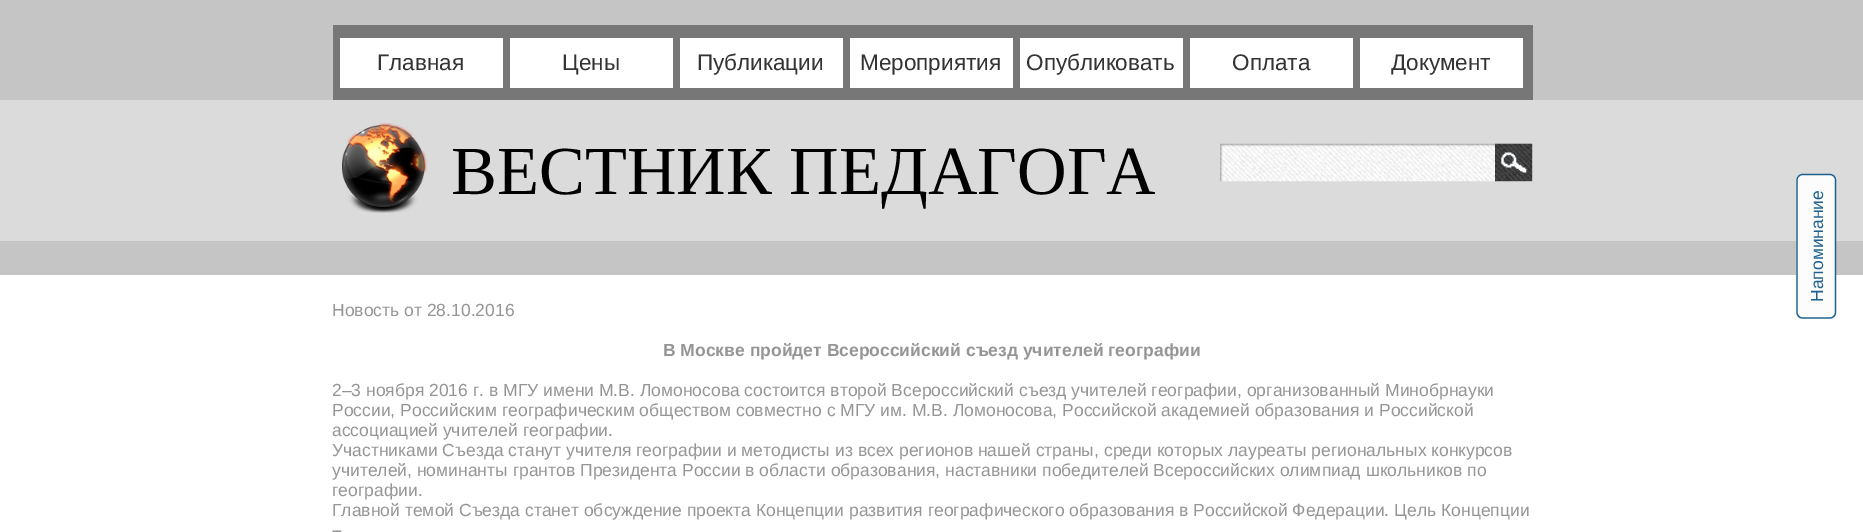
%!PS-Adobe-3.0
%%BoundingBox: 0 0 1863 532
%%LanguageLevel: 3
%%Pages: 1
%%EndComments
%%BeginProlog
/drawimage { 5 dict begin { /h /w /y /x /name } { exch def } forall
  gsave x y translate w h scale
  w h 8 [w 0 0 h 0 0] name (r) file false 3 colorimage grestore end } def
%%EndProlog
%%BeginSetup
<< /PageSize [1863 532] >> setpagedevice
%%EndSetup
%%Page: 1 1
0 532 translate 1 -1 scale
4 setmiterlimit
1 setgray
0 0 1863 532 rectfill
0.773 setgray
0 0 1863 275 rectfill
0.467 setgray
333 25 1200 75 rectfill
1 setgray
340 38 163 50 rectfill
510 38 163 50 rectfill
680 38 163 50 rectfill
850 38 163 50 rectfill
1020 38 163 50 rectfill
1190 38 163 50 rectfill
1360 38 163 50 rectfill
0.859 setgray
0 100 1863 141 rectfill
(images/1.raw) 342 123 85 90 drawimage
(images/2.raw) 1220 143 313 39 drawimage
(images/3.raw) 1495 143 38 39 drawimage
0.988 setgray
newpath 1796 312 moveto 1796 180 lineto 1796 177 1799 174 1802 174 curveto 1830 174 lineto 1833 174 1836 177 1836 180 curveto 1836 312 lineto 1836 316 1833 319 1830 319 curveto 1802 319 lineto 1799 319 1796 316 1796 312 curveto closepath fill
0.118 0.384 0.553 setrgbcolor
1.2 setlinewidth
newpath 1797 312.5 moveto 1797 180 lineto 1797 177 1799.5 174.5 1802.5 174.5 curveto 1830 174.5 lineto 1833 174.5 1835.5 177 1835.5 180 curveto 1835.5 312.5 lineto 1835.5 315.5 1833 318 1830 318 curveto 1802.5 318 lineto 1799.5 318 1797 315.5 1797 312.5 curveto closepath stroke
/LiberationSans-Regular [22.5 0 0 -22.5 0 0] selectfont
0.2 setgray
377 70 moveto (Главная) show
562 70 moveto (Цены) show
697 70 moveto (Публикации) show
860 70 moveto (Мероприятия) show
1026 70 moveto (Опубликовать) show
1232 70 moveto (Оплата) show
1391 70 moveto (Документ) show
/LiberationSerif-Regular [68.75 0 0 -68.75 0 0] selectfont
0 setgray
451 194 moveto (ВЕСТНИК ПЕДАГОГА) show
/LiberationSans-Regular [17.5 0 0 -17.5 0 0] selectfont
0.118 0.384 0.553 setrgbcolor
gsave 1823 302 translate -90 rotate 0 0 moveto (Напоминание) show grestore
0.584 setgray
332 316 moveto (Новость от 28.10.2016) show
/LiberationSans-Bold [17.5 0 0 -17.5 0 0] selectfont
663 356 moveto (В Москве пройдет Всероссийский съезд учителей географии) show
/LiberationSans-Regular [17.5 0 0 -17.5 0 0] selectfont
332 396 moveto (2–3 ноября 2016 г. в МГУ имени М.В. Ломоносова состоится второй Всероссийский съезд учителей географии, организованный Минобрнауки) show
332 416 moveto (России, Российским географическим обществом совместно с МГУ им. М.В. Ломоносова, Российской академией образования и Российской) show
332 436 moveto (ассоциацией учителей географии.) show
332 456 moveto (Участниками Съезда станут учителя географии и методисты из всех регионов нашей страны, среди которых лауреаты региональных конкурсов) show
332 476 moveto (учителей, номинанты грантов Президента России в области образования, наставники победителей Всероссийских олимпиад школьников по) show
332 496 moveto (географии.) show
332 516 moveto (Главной темой Съезда станет обсуждение проекта Концепции развития географического образования в Российской Федерации. Цель Концепции) show
/LiberationSans-Bold [17.5 0 0 -17.5 0 0] selectfont
332 536 moveto (–) show
showpage
%%EOF
